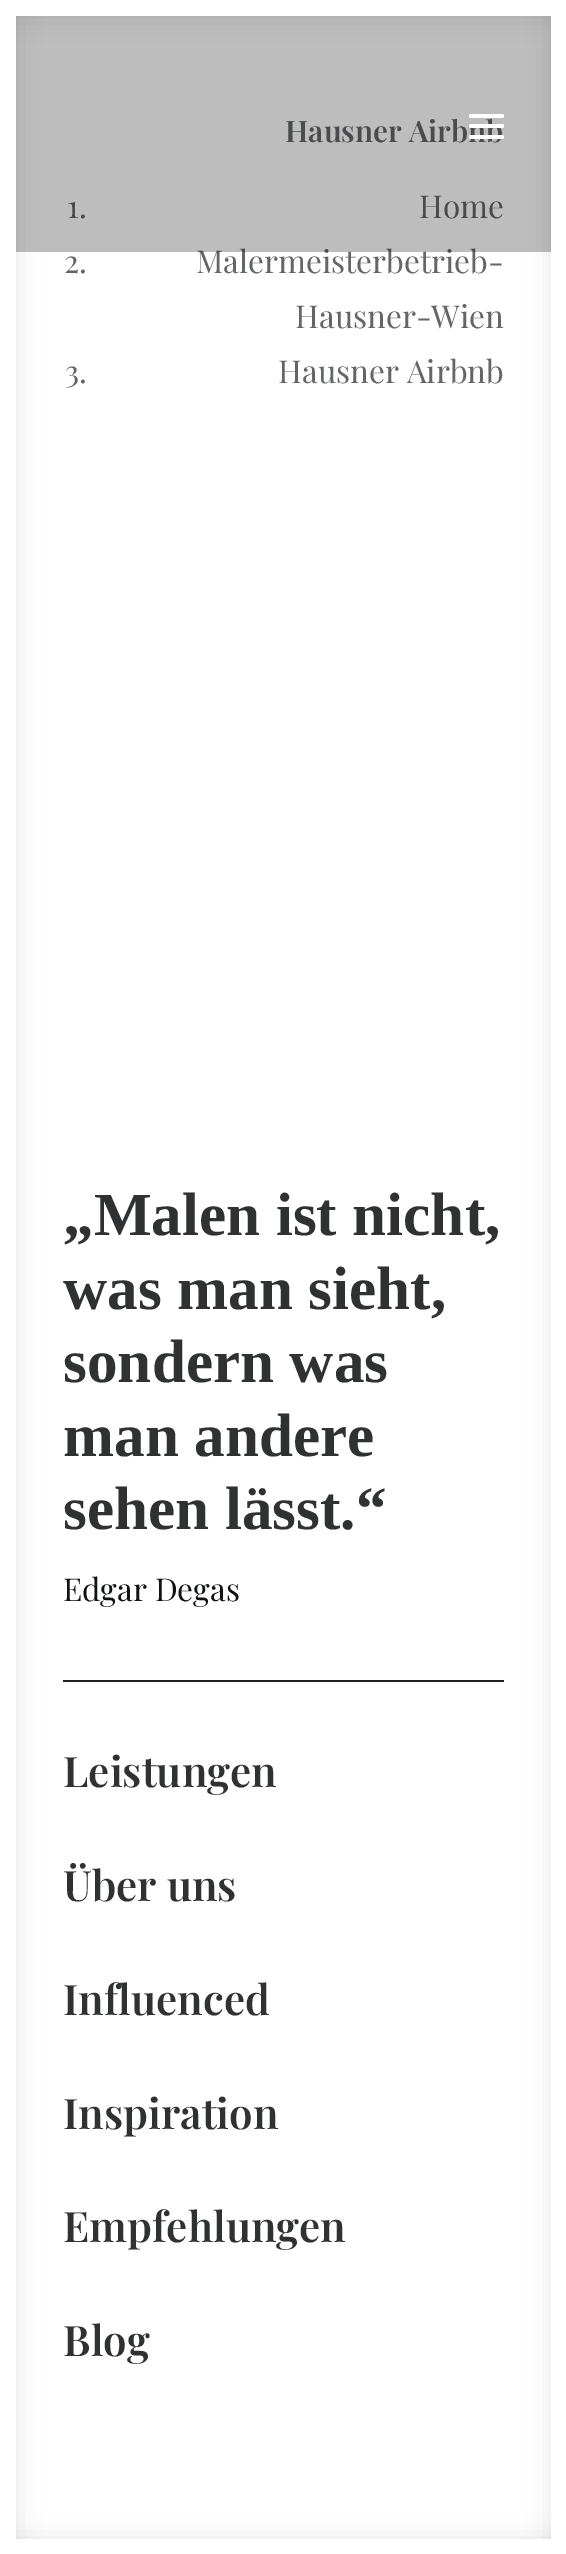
%!PS-Adobe-3.0
%%BoundingBox: 0 0 566 2554
%%LanguageLevel: 3
%%Pages: 1
%%EndComments
%%BeginProlog
/setalpha { dup .setfillconstantalpha .setstrokeconstantalpha } def
/rrect { 5 dict begin { /r /h /w /y /x } { exch def } forall
  x r add y moveto x w add y 2 copy h add r arct x w add y h add x 1 index r arct
  x y h add x y r arct x y 2 copy exch w add exch r arct closepath end } def
/softshadow { 12 dict begin { /a /b /q /h /w /y /x } { exch def } forall gsave /was 0 def
  9 -2 -9 { dup b mul 4 div /e exch def 1 sub .425 mul 2.718 exch exp 1 add a .99 .min exch div /now exch def
    1 1 now sub 1 was sub div sub setalpha /was now def
    w h .min e 2 mul add 0 gt { x e sub y e sub w e 2 mul add h e 2 mul add
      q e add b .6 mul add w h .min 2 div e add .min 0 .max rrect fill } if } for grestore end } def
%%EndProlog
%%BeginSetup
<< /PageSize [566 2554] /PageUsesTransparency true >> setpagedevice
%%EndSetup
%%Page: 1 1
0 .pushpdf14devicefilter
0 2554 translate 1 -1 scale
4 setmiterlimit
1 setgray
0 0 566 2554 rectfill
0 setgray
0 2539 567 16 0 12 0.1 softshadow
0.129 0.125 0.125 setrgbcolor
63 1680 441 2 rectfill
/PlayfairDisplay-SemiBold [29.75 0 0 -29.75 0 0] selectfont
0.392 0.396 0.4 setrgbcolor
285 142 moveto (Hausner Airbnb) show
/PlayfairDisplay-Regular [31.5 0 0 -31.5 0 0] selectfont
67 218 moveto (1.) show
419 218 moveto (Home) show
64 273 moveto (2.) show
196 273 moveto (Malermeisterbetrieb-) show
0.26 setalpha
0 setgray
16 16 535 236 rectfill
1 setalpha
0 0 16 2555 0 12 0.1 softshadow
0 0 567 16 0 12 0.1 softshadow
1 setgray
0 0 16 2554 rectfill
0 setgray
551 0 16 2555 0 12 0.1 softshadow
1 setgray
16 2539 550 15 rectfill
551 0 15 2539 rectfill
16 0 535 16 rectfill
469 114 35 4 2 rrect fill
469 135 35 4 2 rrect fill
469 124 35 4 2 rrect fill
0.392 0.396 0.4 setrgbcolor
295 328 moveto (Hausner-Wien) show
65 383 moveto (3.) show
278 383 moveto (Hausner Airbnb) show
/LiberationSerif-Bold [61.25 0 0 -61.25 0 0] selectfont
0.188 0.192 0.2 setrgbcolor
63 1235 moveto („Malen ist nicht,) show
63 1309 moveto (was man sieht,) show
63 1382 moveto (sondern was) show
63 1456 moveto (man andere) show
63 1529 moveto (sehen lässt.“) show
/PlayfairDisplay-Regular [31.5 0 0 -31.5 0 0] selectfont
0.063 0.071 0.075 setrgbcolor
63 1601 moveto (Edgar Degas) show
/PlayfairDisplay-SemiBold [42 0 0 -42 0 0] selectfont
0.188 0.192 0.2 setrgbcolor
63 1787 moveto (Leistungen) show
63 1901 moveto (Über uns) show
63 2015 moveto (Influenced) show
63 2129 moveto (Inspiration) show
63 2242 moveto (Empfehlungen) show
63 2356 moveto (Blog) show
.poppdf14devicefilter showpage
%%EOF
